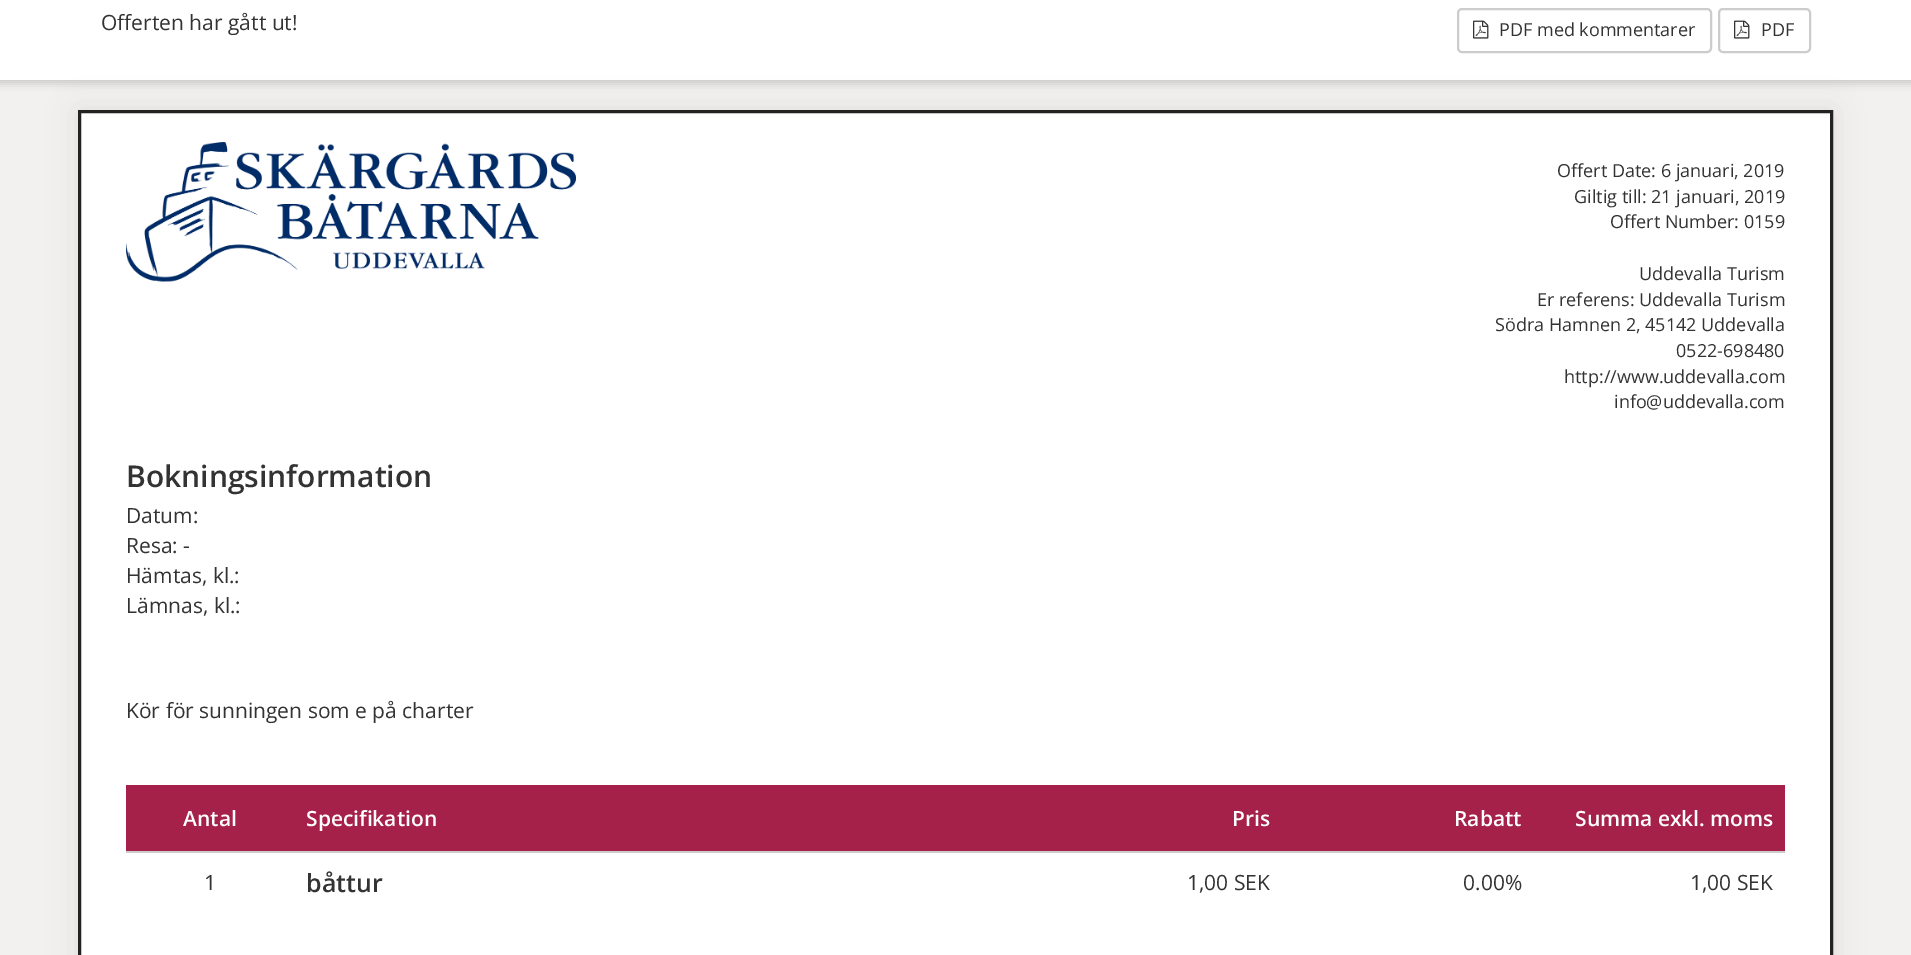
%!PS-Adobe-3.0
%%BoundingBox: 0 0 1911 955
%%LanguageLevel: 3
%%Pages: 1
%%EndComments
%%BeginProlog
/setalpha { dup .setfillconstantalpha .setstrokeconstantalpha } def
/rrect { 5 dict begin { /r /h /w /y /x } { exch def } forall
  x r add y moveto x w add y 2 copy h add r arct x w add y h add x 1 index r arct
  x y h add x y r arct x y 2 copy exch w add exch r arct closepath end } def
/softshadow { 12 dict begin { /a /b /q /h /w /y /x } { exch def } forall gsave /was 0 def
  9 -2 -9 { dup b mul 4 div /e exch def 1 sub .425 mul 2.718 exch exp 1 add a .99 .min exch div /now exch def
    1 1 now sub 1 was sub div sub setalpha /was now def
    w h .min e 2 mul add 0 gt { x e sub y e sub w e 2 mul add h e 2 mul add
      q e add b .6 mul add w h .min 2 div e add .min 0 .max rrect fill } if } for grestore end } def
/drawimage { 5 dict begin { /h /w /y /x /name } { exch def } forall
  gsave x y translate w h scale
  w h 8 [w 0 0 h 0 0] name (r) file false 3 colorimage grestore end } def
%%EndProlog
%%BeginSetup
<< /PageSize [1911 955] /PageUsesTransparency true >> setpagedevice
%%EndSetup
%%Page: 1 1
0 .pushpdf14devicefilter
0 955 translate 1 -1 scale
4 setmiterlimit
0.949 0.945 0.937 setrgbcolor
0 0 1911 955 rectfill
0 setgray
-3 -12 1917 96 0 4 0.15 softshadow
1 setgray
0 0 1911 80 rectfill
0.8 setgray
2 setlinewidth
1458 9 253 43 4 rrect stroke
(images/1.raw) 1473 20 16 19 drawimage
1719 9 91 43 4 rrect stroke
(images/1.raw) 1734 20 16 19 drawimage
0 setgray
78 110 1755 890 0 15 0.07 softshadow
1 setgray
newpath 79.5 111.5 moveto 1831.5 111.5 lineto 1831.5 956.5 lineto 79.5 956.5 lineto closepath gsave fill grestore
0.133 setgray
3 setlinewidth
stroke
(images/2.raw) 126 142 450 140 drawimage
0.651 0.129 0.29 setrgbcolor
126 785 1659 66 rectfill
0.8 setgray
126 851 1659 2 rectfill
/OpenSans-Regular [21 0 0 -21 0 0] selectfont
0.2 setgray
101 30 moveto (Offerten har gått ut!) show
/OpenSans-Regular [18 0 0 -18 0 0] selectfont
1499 36 moveto (PDF med kommentarer) show
1761 36 moveto (PDF) show
1557 177 moveto (Offert Date: 6 januari, 2019) show
1574 203 moveto (Giltig till: 21 januari, 2019) show
1610 228 moveto (Offert Number: 0159) show
1639 280 moveto (Uddevalla Turism) show
1537 306 moveto (Er referens: Uddevalla Turism) show
1495 331 moveto (Södra Hamnen 2, 45142 Uddevalla) show
1676 357 moveto (0522-698480) show
1564 383 moveto (http://www.uddevalla.com) show
1614 408 moveto (info@uddevalla.com) show
/OpenSans-SemiBold [30 0 0 -30 0 0] selectfont
126 487 moveto (Bokningsinformation) show
/OpenSans-Regular [21 0 0 -21 0 0] selectfont
126 523 moveto (Datum:) show
126 553 moveto (Resa: -) show
126 583 moveto (Hämtas, kl.:) show
126 613 moveto (Lämnas, kl.:) show
126 718 moveto (Kör för sunningen som e på charter) show
/OpenSans-SemiBold [21 0 0 -21 0 0] selectfont
1 setgray
183 826 moveto (Antal) show
306 826 moveto (Specifikation) show
1232 826 moveto (Pris) show
1454 826 moveto (Rabatt) show
1575 826 moveto (Summa exkl. moms) show
/OpenSans-Regular [21 0 0 -21 0 0] selectfont
0.2 setgray
204 890 moveto (1) show
/OpenSans-SemiBold [25 0 0 -25 0 0] selectfont
306 892 moveto (båttur) show
/OpenSans-Regular [21 0 0 -21 0 0] selectfont
1187 890 moveto (1,00 SEK) show
1463 890 moveto (0.00%) show
1690 890 moveto (1,00 SEK) show
.poppdf14devicefilter showpage
%%EOF
